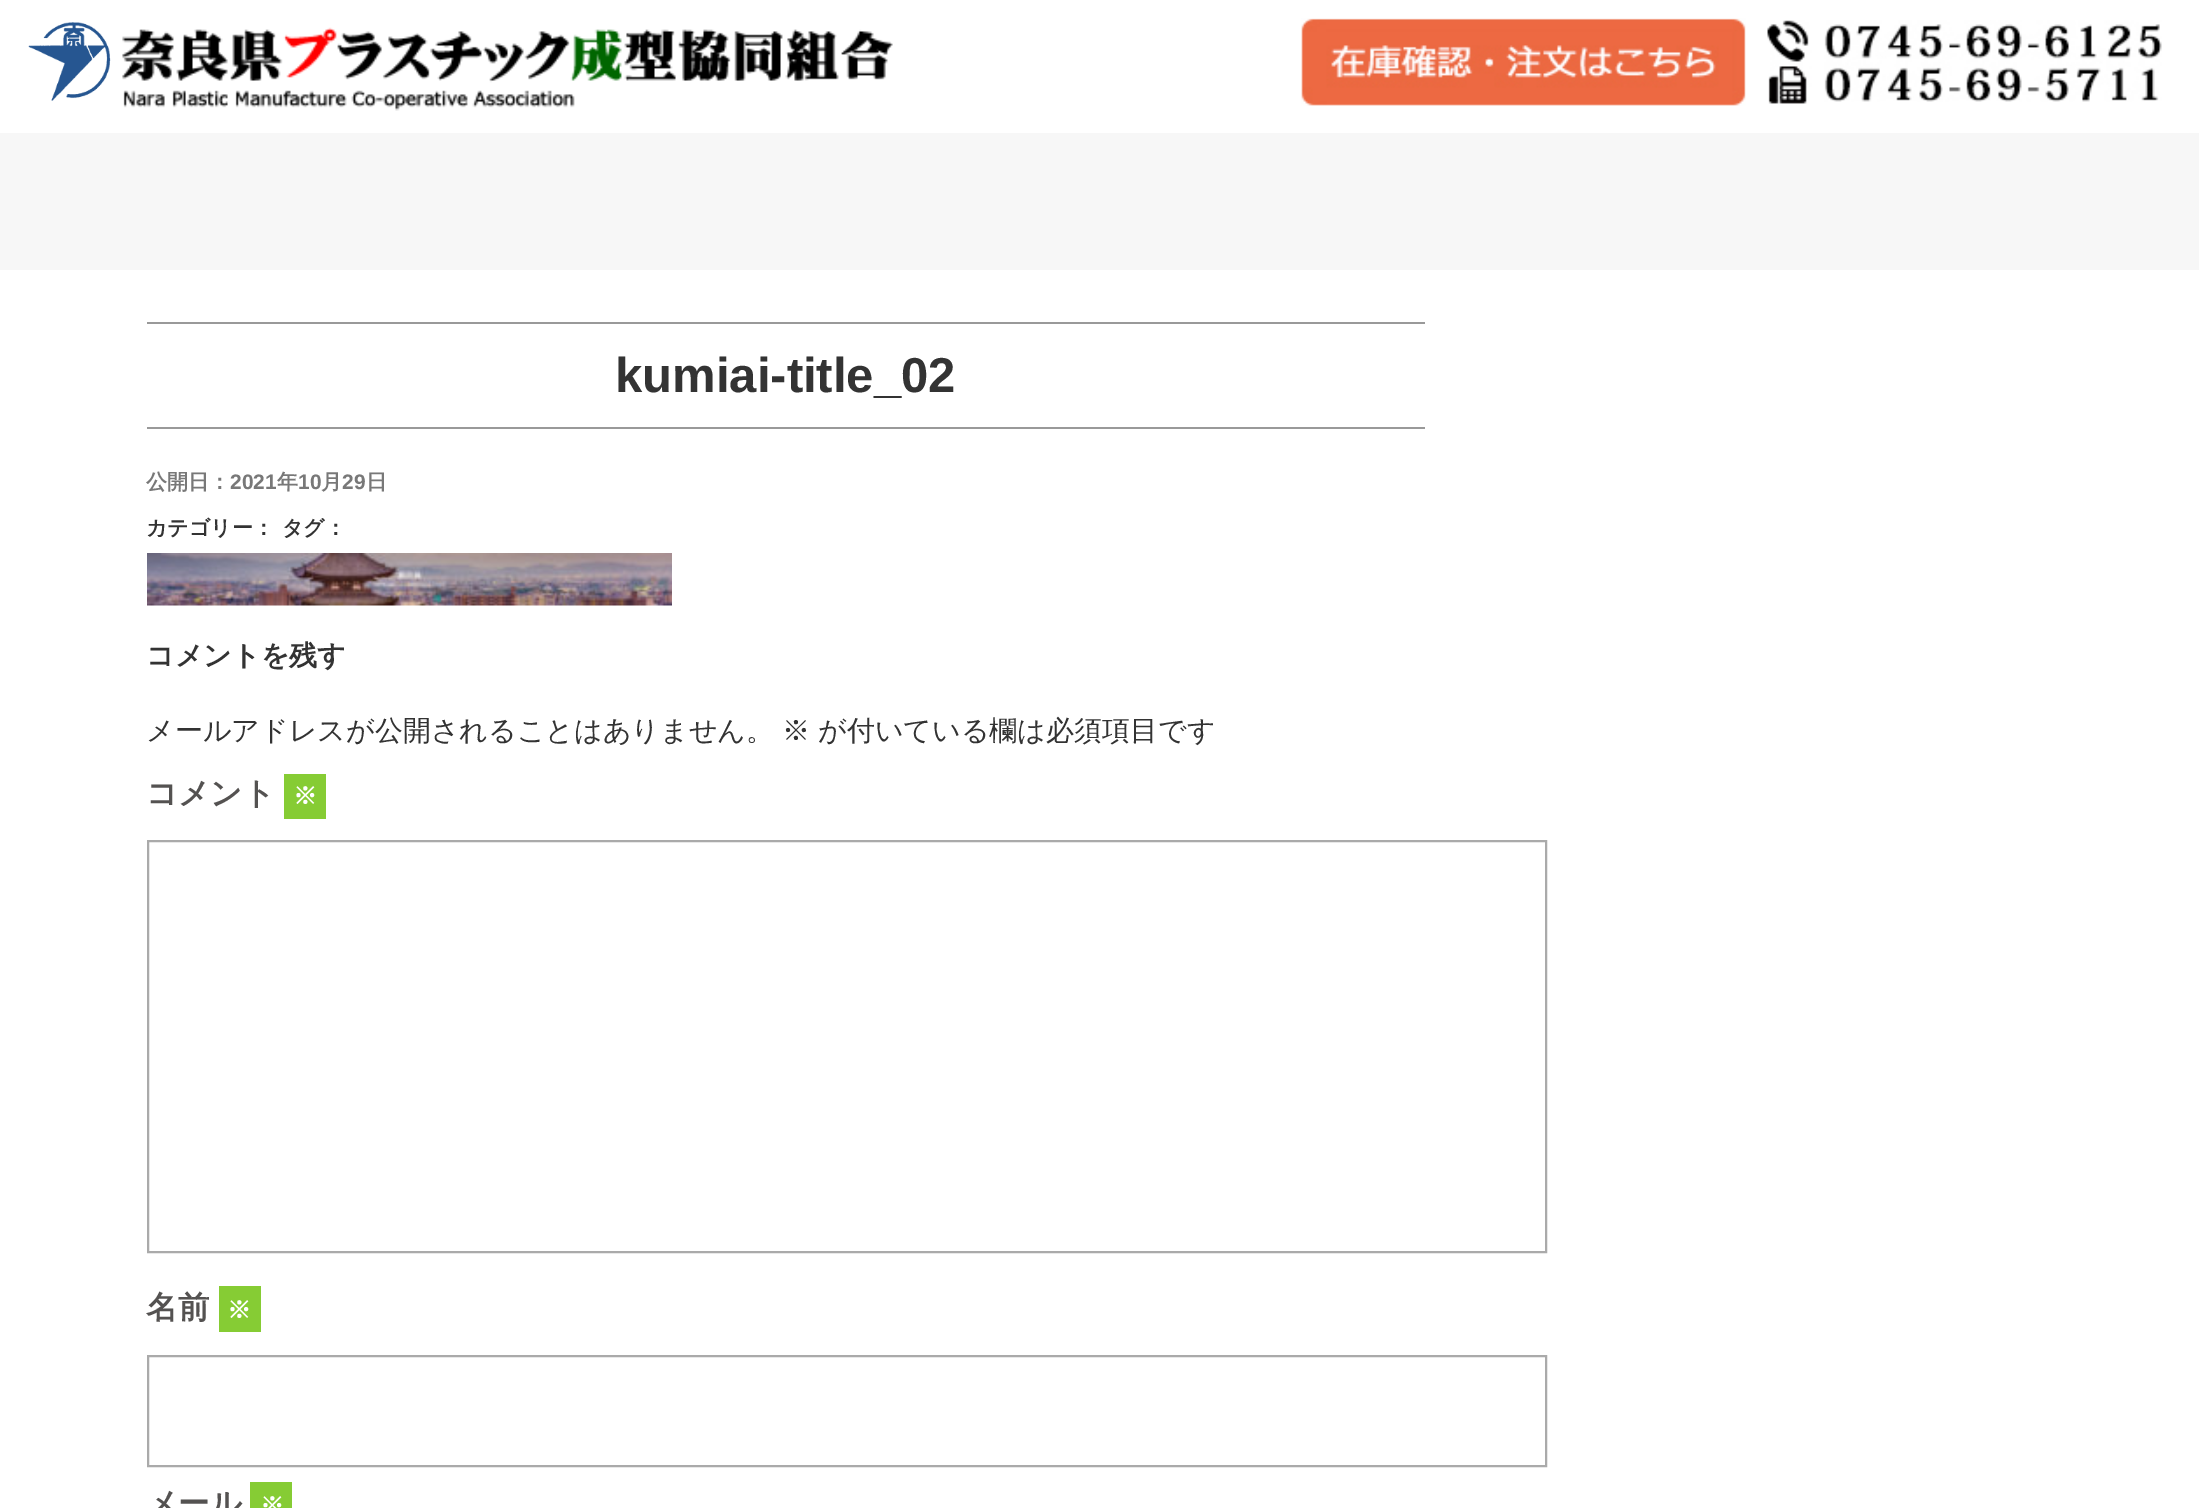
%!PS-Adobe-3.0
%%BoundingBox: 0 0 2199 1508
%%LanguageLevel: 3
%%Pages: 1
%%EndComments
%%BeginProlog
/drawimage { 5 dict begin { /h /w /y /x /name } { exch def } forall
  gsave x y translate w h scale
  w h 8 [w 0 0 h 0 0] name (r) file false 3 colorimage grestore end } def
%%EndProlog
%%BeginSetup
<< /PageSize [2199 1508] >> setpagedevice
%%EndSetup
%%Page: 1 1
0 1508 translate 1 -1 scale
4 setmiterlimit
1 setgray
0 0 2199 1508 rectfill
(images/1.raw) 28 22 83 79 drawimage
(images/2.raw) 122 27 771 84 drawimage
(images/3.raw) 1301 18 445 88 drawimage
(images/4.raw) 1767 20 395 84 drawimage
0.969 setgray
0 133 2199 137 rectfill
0.6 setgray
147 322 1278 2 rectfill
147 427 1278 2 rectfill
(images/5.raw) 147 553 525 53 drawimage
0.525 0.8 0.204 setrgbcolor
284 774 42 45 rectfill
0.667 setgray
2 setlinewidth
148 841 1398 411 rectstroke
0.525 0.8 0.204 setrgbcolor
219 1286 42 46 rectfill
0.667 setgray
148 1356 1398 110 rectstroke
0.525 0.8 0.204 setrgbcolor
250 1482 42 26 rectfill
/LiberationSans-Bold [49 0 0 -49 0 0] selectfont
0.2 setgray
615 392 moveto (kumiai-title_02) show
/WenQuanYiZenHei-Bold [21 0 0 -21 0 0] selectfont
0.471 setgray
146 489 moveto (公開日：) show
/LiberationSans-Bold [21 0 0 -21 0 0] selectfont
230 489 moveto (2021) show
/WenQuanYiZenHei-Bold [21 0 0 -21 0 0] selectfont
277 489 moveto (年) show
/LiberationSans-Bold [21 0 0 -21 0 0] selectfont
298 489 moveto (10) show
/WenQuanYiZenHei-Bold [21 0 0 -21 0 0] selectfont
321 489 moveto (月) show
/LiberationSans-Bold [21 0 0 -21 0 0] selectfont
342 489 moveto (29) show
/WenQuanYiZenHei-Bold [21 0 0 -21 0 0] selectfont
366 489 moveto (日) show
0.2 setgray
146 535 moveto (カテゴリー：) show
282 535 moveto (タグ：) show
/WenQuanYiZenHei-Bold [28 0 0 -28 0 0] selectfont
146 665 moveto (コメントを残す) show
/WenQuanYiZenHei-Medium [28 0 0 -28 0 0] selectfont
146 740 moveto (メールアドレスが公開されることはありません。) show
782 740 moveto (※) show
818 740 moveto (が付いている欄は必須項目です) show
/WenQuanYiZenHei-Bold [31.5 0 0 -31.5 0 0] selectfont
0.329 0.322 0.318 setrgbcolor
146 804 moveto (コメント) show
/WenQuanYiZenHei-Bold [24 0 0 -24 0 0] selectfont
1 setgray
293 804 moveto (※) show
/WenQuanYiZenHei-Bold [31.5 0 0 -31.5 0 0] selectfont
0.329 0.322 0.318 setrgbcolor
146 1318 moveto (名前) show
/WenQuanYiZenHei-Bold [24 0 0 -24 0 0] selectfont
1 setgray
227 1318 moveto (※) show
/WenQuanYiZenHei-Bold [31.5 0 0 -31.5 0 0] selectfont
0.329 0.322 0.318 setrgbcolor
146 1514 moveto (メール) show
/WenQuanYiZenHei-Bold [24 0 0 -24 0 0] selectfont
1 setgray
260 1514 moveto (※) show
showpage
%%EOF
